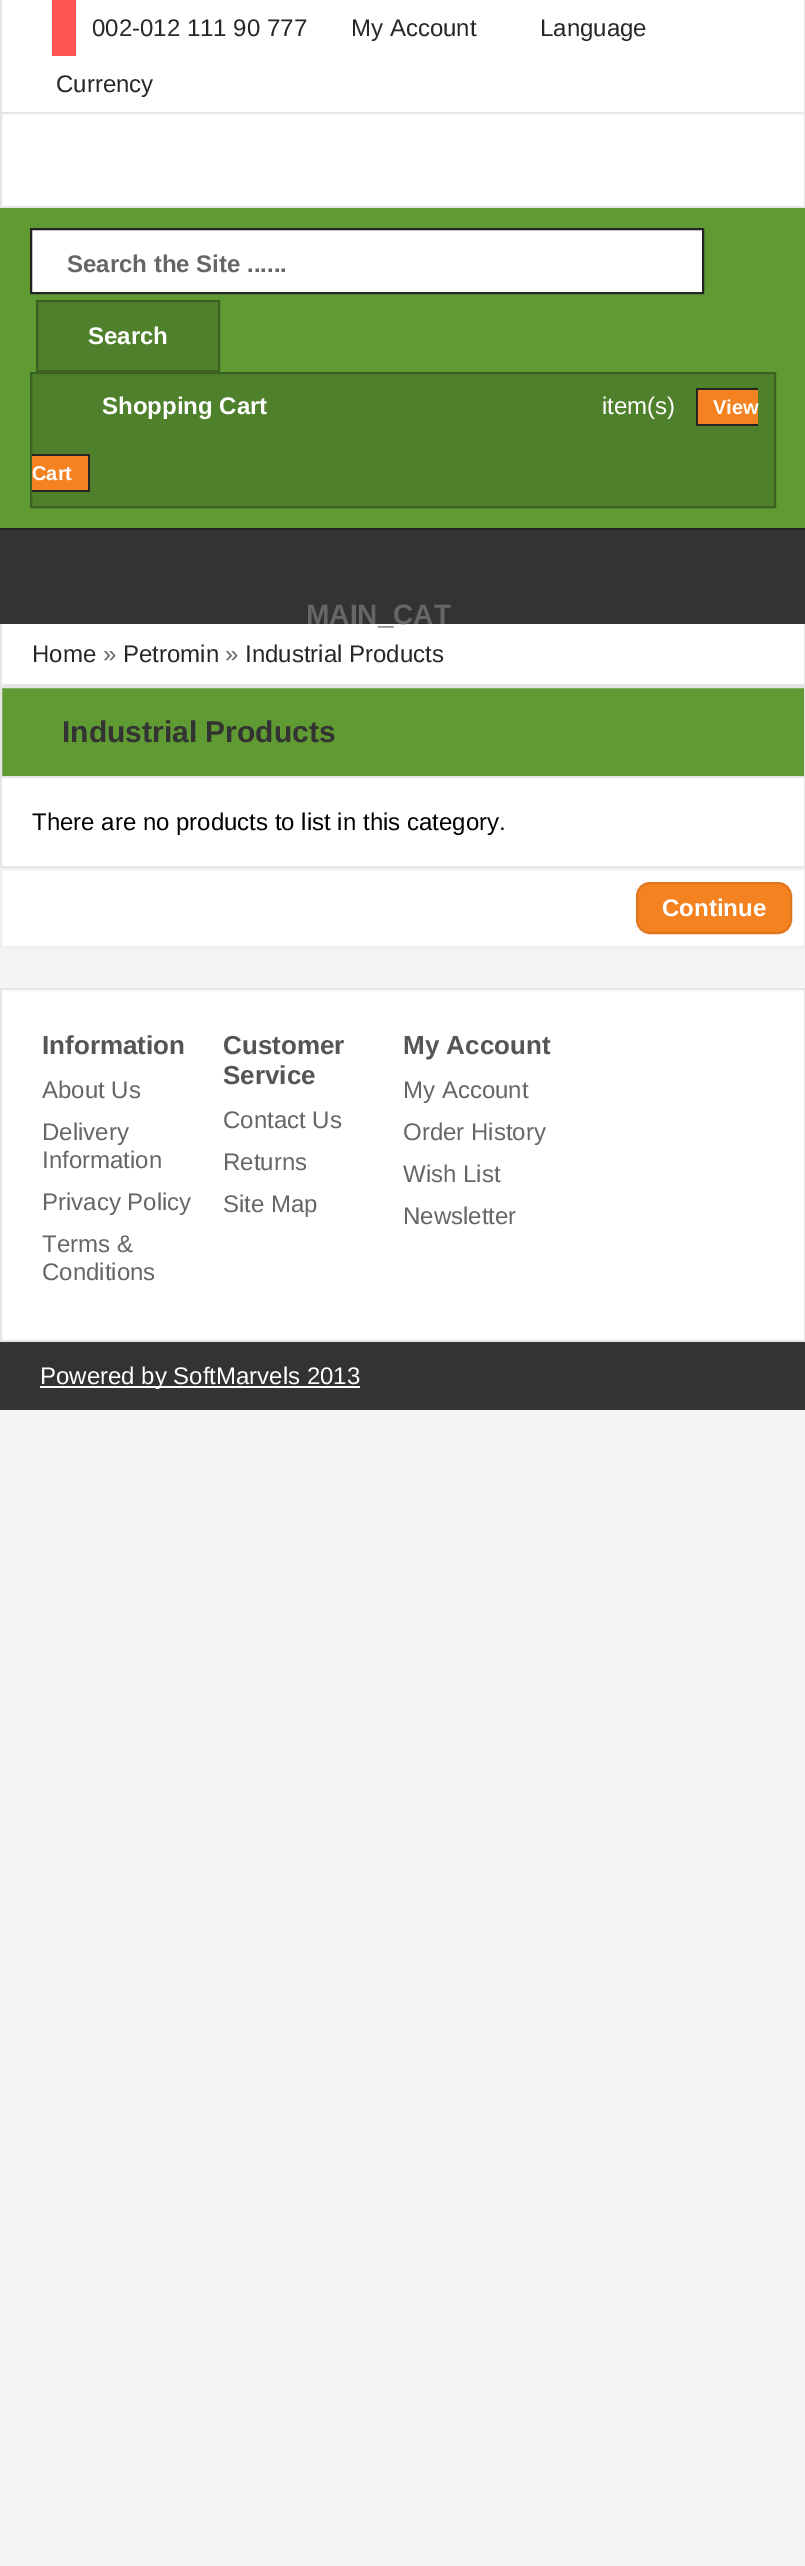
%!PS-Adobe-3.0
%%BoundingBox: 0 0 805 2566
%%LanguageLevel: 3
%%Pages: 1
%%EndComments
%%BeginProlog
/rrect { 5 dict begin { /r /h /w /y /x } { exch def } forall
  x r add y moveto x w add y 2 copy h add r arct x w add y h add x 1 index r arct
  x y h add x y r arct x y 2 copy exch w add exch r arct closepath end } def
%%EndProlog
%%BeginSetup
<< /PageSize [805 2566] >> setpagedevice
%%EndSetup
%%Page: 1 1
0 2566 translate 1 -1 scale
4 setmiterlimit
0.957 setgray
0 0 805 2566 rectfill
1 setgray
2 0 802 112 rectfill
0.902 setgray
804 0 1 112 rectfill
0 0 2 112 rectfill
1 0.333 0.333 setrgbcolor
52 0 24 56 rectfill
1 setgray
newpath 1 113 moveto 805 113 lineto 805 207 lineto 1 207 lineto closepath gsave fill grestore
0.902 setgray
2 setlinewidth
stroke
0.373 0.604 0.2 setrgbcolor
0 208 805 320 rectfill
0.141 setgray
0 528 805 2 rectfill
1 setgray
newpath 31 229 moveto 703 229 lineto 703 293 lineto 31 293 lineto closepath gsave fill grestore
0.141 setgray
stroke
0.31 0.502 0.169 setrgbcolor
newpath 37 301 moveto 219 301 lineto 219 371 lineto 37 371 lineto closepath gsave fill grestore
0.231 0.376 0.125 setrgbcolor
stroke
0.31 0.502 0.169 setrgbcolor
newpath 31 373 moveto 775 373 lineto 775 507 lineto 31 507 lineto closepath gsave fill grestore
0.231 0.376 0.125 setrgbcolor
stroke
0.961 0.51 0.125 setrgbcolor
698 390 60 34 rectfill
0.141 setgray
696 388 62 2 rectfill
696 424 62 2 rectfill
696 388 2 38 rectfill
0.961 0.51 0.125 setrgbcolor
32 456 56 34 rectfill
0.141 setgray
32 454 58 2 rectfill
88 454 2 38 rectfill
32 490 58 2 rectfill
0.2 setgray
0 530 805 94 rectfill
1 setgray
2 624 802 60 rectfill
0.902 setgray
804 624 1 62 rectfill
0 684 805 2 rectfill
0 624 2 62 rectfill
0.373 0.604 0.2 setrgbcolor
newpath 1 687 moveto 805 687 lineto 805 777 lineto 1 777 lineto closepath gsave fill grestore
0.89 setgray
stroke
1 setgray
2 778 802 88 rectfill
0.902 setgray
804 778 1 90 rectfill
0 866 805 2 rectfill
0 778 2 90 rectfill
1 setgray
newpath 1 869 moveto 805 869 lineto 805 947 lineto 1 947 lineto closepath gsave fill grestore
0.933 setgray
stroke
0.961 0.51 0.125 setrgbcolor
637 883 154 50 13 rrect gsave fill grestore
0.871 0.467 0.122 setrgbcolor
stroke
1 setgray
newpath 1 989 moveto 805 989 lineto 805 1341 lineto 1 1341 lineto closepath gsave fill grestore
0.902 setgray
stroke
0.2 setgray
0 1342 805 68 rectfill
1 setgray
40 1386 320 2 rectfill
/LiberationSans-Regular [24 0 0 -24 0 0] selectfont
0.153 setgray
92 36 moveto (002-012 111 90 777) show
351 36 moveto (My Account) show
540 36 moveto (Language) show
56 92 moveto (Currency) show
/LiberationSans-Bold [24 0 0 -24 0 0] selectfont
0.4 setgray
67 272 moveto (Search the Site ......) show
1 setgray
88 344 moveto (Search) show
102 414 moveto (Shopping Cart) show
/LiberationSans-Regular [24 0 0 -24 0 0] selectfont
602 414 moveto (item\(s\)) show
/LiberationSans-Bold [20 0 0 -20 0 0] selectfont
713 414 moveto (View) show
32 480 moveto (Cart) show
/LiberationSans-Bold [28 0 0 -28 0 0] selectfont
0.4 setgray
306 624 moveto (MAIN_CAT) show
/LiberationSans-Regular [24 0 0 -24 0 0] selectfont
0.153 setgray
32 662 moveto (Home) show
0.4 setgray
103 662 moveto (») show
0.153 setgray
123 662 moveto (Petromin) show
0.4 setgray
225 662 moveto (») show
0.153 setgray
245 662 moveto (Industrial Products) show
/LiberationSans-Bold [30 0 0 -30 0 0] selectfont
0.2 setgray
62 742 moveto (Industrial Products) show
/LiberationSans-Regular [24 0 0 -24 0 0] selectfont
0 setgray
32 830 moveto (There are no products to list in this category.) show
/LiberationSans-Bold [24 0 0 -24 0 0] selectfont
1 setgray
662 916 moveto (Continue) show
/LiberationSans-Bold [26 0 0 -26 0 0] selectfont
0.333 setgray
42 1054 moveto (Information) show
/LiberationSans-Regular [24 0 0 -24 0 0] selectfont
0.4 setgray
42 1098 moveto (About Us) show
42 1140 moveto (Delivery) show
42 1168 moveto (Information) show
42 1210 moveto (Privacy Policy) show
42 1252 moveto (Terms &) show
42 1280 moveto (Conditions) show
/LiberationSans-Bold [26 0 0 -26 0 0] selectfont
0.333 setgray
223 1054 moveto (Customer) show
223 1084 moveto (Service) show
/LiberationSans-Regular [24 0 0 -24 0 0] selectfont
0.4 setgray
223 1128 moveto (Contact Us) show
223 1170 moveto (Returns) show
223 1212 moveto (Site Map) show
/LiberationSans-Bold [26 0 0 -26 0 0] selectfont
0.333 setgray
403 1054 moveto (My Account) show
/LiberationSans-Regular [24 0 0 -24 0 0] selectfont
0.4 setgray
403 1098 moveto (My Account) show
403 1140 moveto (Order History) show
403 1182 moveto (Wish List) show
403 1224 moveto (Newsletter) show
1 setgray
40 1384 moveto (Powered by SoftMarvels 2013) show
showpage
%%EOF
